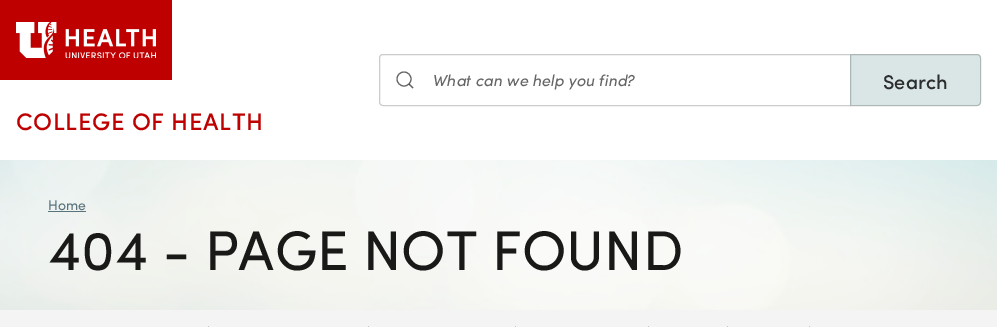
%!PS-Adobe-3.0
%%BoundingBox: 0 0 997 327
%%LanguageLevel: 3
%%Pages: 1
%%EndComments
%%BeginProlog
/setalpha { dup .setfillconstantalpha .setstrokeconstantalpha } def
/drawimage { 5 dict begin { /h /w /y /x /name } { exch def } forall
  gsave x y translate w h scale
  w h 8 [w 0 0 h 0 0] name (r) file false 3 colorimage grestore end } def
%%EndProlog
%%BeginSetup
<< /PageSize [997 327] /PageUsesTransparency true >> setpagedevice
%%EndSetup
%%Page: 1 1
0 .pushpdf14devicefilter
0 327 translate 1 -1 scale
4 setmiterlimit
1 setgray
0 0 997 327 rectfill
0.8 setgray
newpath 383 54.5 moveto 850.5 54.5 lineto 850.5 105.5 lineto 383 105.5 lineto 381 105.5 379.5 104 379.5 102 curveto 379.5 58 lineto 379.5 56 381 54.5 383 54.5 curveto closepath stroke
0.4 setgray
1.1 setlinewidth
newpath 404 79 7 0 360 arc closepath stroke
0.6 setalpha
0 setgray
newpath 409 84 moveto 413 88 lineto closepath stroke
1 setalpha
0.855 0.898 0.902 setrgbcolor
newpath 850 54 moveto 977 54 lineto 979 54 981 56 981 58 curveto 981 102 lineto 981 104 979 106 977 106 curveto 850 106 lineto closepath fill
0.2 setalpha
0 setgray
1 setlinewidth
newpath 850.5 54.5 moveto 977 54.5 lineto 979 54.5 980.5 56 980.5 58 curveto 980.5 102 lineto 980.5 104 979 105.5 977 105.5 curveto 850.5 105.5 lineto closepath stroke
1 setalpha
0.745 0 0 setrgbcolor
0 0 172 80 rectfill
(images/1.raw) 16 22 140 36 drawimage
(images/2.raw) 0 160 997 150 drawimage
0.349 0.451 0.49 setrgbcolor
48 211 38 1 rectfill
0.957 0.957 0.961 setrgbcolor
0 310 997 17 rectfill
0.765 0.765 0.769 setrgbcolor
208 326 1 1 rectfill
368 326 1 1 rectfill
515 326 1 1 rectfill
648 326 1 1 rectfill
727 326 1 1 rectfill
809 326 1 1 rectfill
/Sofia-Italic [16 0 0 -16 0 0] selectfont
0.4 setgray
432 86 moveto (What can we help you find?) show
/Sofia-Medium [20 0 0 -20 0 0] selectfont
0.173 0.18 0.18 setrgbcolor
883 89 moveto (Search) show
/Sofia-Medium [24 0 0 -24 0 0] selectfont
0.745 0 0 setrgbcolor
16 130 moveto 0.6 0 (COLLEGE OF HEALTH) ashow
/Sofia-Regular [14 0 0 -14 0 0] selectfont
0.349 0.451 0.49 setrgbcolor
48 210 moveto (Home) show
/Sofia-Regular [56 0 0 -56 0 0] selectfont
0.098 0.098 0.094 setrgbcolor
48 270 moveto (404 - PAGE NOT FOUND) show
.poppdf14devicefilter showpage
%%EOF
